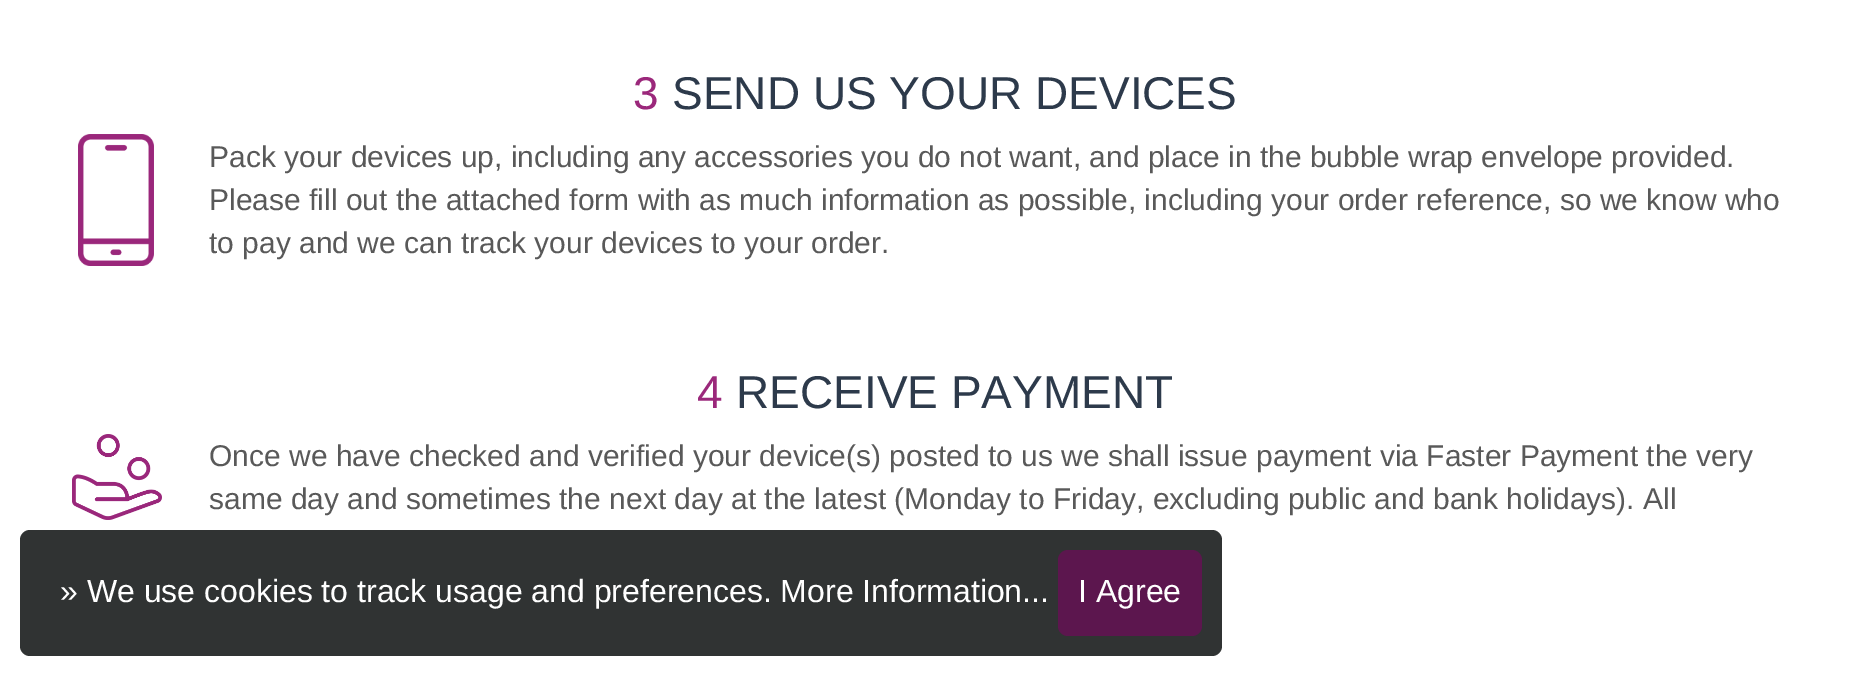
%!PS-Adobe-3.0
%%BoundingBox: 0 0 1870 675
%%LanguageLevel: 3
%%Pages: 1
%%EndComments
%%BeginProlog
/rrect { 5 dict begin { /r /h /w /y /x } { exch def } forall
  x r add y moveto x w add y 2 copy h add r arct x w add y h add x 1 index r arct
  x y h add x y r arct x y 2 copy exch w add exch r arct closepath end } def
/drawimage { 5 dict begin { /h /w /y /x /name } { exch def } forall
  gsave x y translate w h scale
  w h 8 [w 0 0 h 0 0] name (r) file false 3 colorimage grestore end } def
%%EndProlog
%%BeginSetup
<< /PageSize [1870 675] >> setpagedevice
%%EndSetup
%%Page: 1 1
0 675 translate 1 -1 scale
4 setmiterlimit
1 setgray
0 0 1870 675 rectfill
(images/1.raw) 78 134 76 132 drawimage
(images/2.raw) 72 434 90 86 drawimage
0.188 0.2 0.2 setrgbcolor
20 530 1202 126 10 rrect fill
0.361 0.086 0.306 setrgbcolor
1058 550 144 86 10 rrect fill
/LiberationSans-Regular [46 0 0 -46 0 0] selectfont
0.608 0.157 0.482 setrgbcolor
633 109 moveto (3) show
0.176 0.227 0.294 setrgbcolor
672 109 moveto (SEND US YOUR DEVICES) show
/LiberationSans-Regular [30 0 0 -30 0 0] selectfont
0.349 setgray
209 167 moveto (Pack your devices up, including any accessories you do not want, and place in the bubble wrap envelope provided.) show
209 210 moveto (Please fill out the attached form with as much information as possible, including your order reference, so we know who) show
209 253 moveto (to pay and we can track your devices to your order.) show
/LiberationSans-Regular [46 0 0 -46 0 0] selectfont
0.608 0.157 0.482 setrgbcolor
697 408 moveto (4) show
0.176 0.227 0.294 setrgbcolor
736 408 moveto (RECEIVE PAYMENT) show
/LiberationSans-Regular [30 0 0 -30 0 0] selectfont
0.349 setgray
209 466 moveto (Once we have checked and verified your device\(s\) posted to us we shall issue payment via Faster Payment the very) show
209 509 moveto (same day and sometimes the next day at the latest \(Monday to Friday, excluding public and bank holidays\). All) show
/LiberationSans-Regular [32 0 0 -32 0 0] selectfont
1 setgray
60 602 moveto (» We use cookies to track usage and preferences. More Information...) show
1078 602 moveto (I Agree) show
showpage
%%EOF
